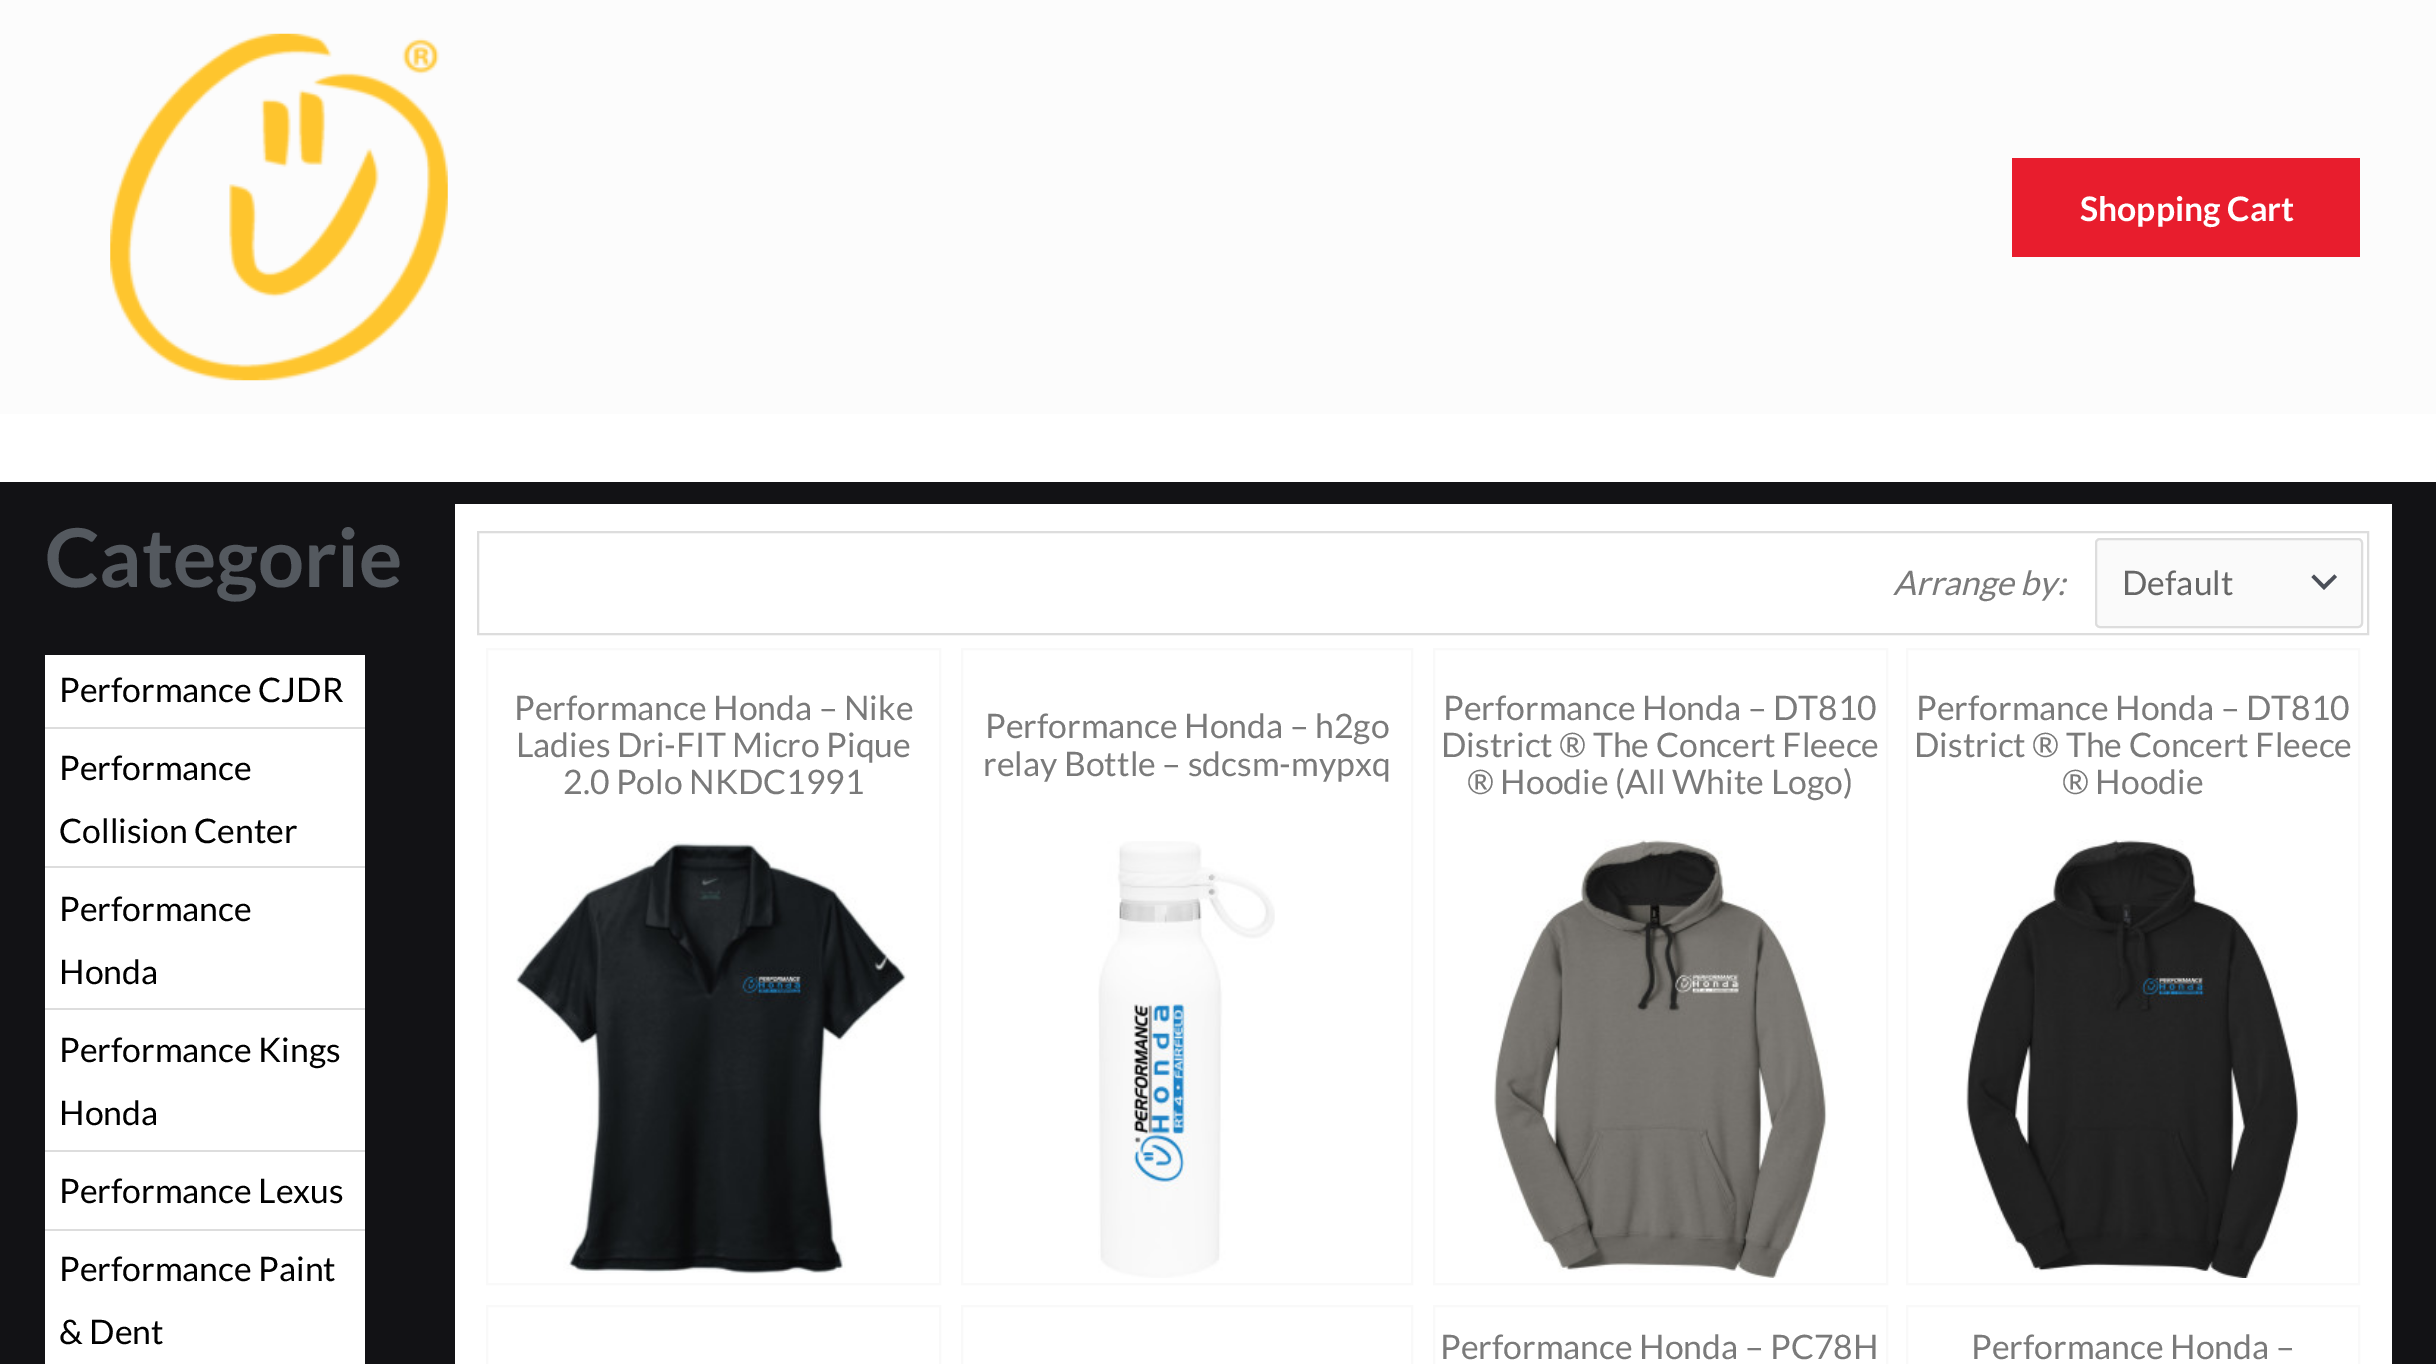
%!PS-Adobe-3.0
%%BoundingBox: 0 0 2436 1364
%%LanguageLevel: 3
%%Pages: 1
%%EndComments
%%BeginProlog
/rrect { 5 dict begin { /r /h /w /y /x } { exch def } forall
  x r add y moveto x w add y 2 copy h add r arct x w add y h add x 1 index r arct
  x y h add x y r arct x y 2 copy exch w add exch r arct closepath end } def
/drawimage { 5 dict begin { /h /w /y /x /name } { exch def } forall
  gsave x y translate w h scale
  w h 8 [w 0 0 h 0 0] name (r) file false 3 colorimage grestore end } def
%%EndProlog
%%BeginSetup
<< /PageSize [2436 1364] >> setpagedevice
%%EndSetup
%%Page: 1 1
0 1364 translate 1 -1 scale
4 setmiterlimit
1 setgray
0 0 2436 1364 rectfill
0.988 setgray
0 0 2436 414 rectfill
(images/1.raw) 110 33 338 348 drawimage
0.91 0.114 0.176 setrgbcolor
2012 158 348 99 rectfill
0.071 0.071 0.082 setrgbcolor
0 482 2436 882 rectfill
1 setgray
45 655 320 709 rectfill
0.867 setgray
45 727 320 2 rectfill
45 866 320 2 rectfill
45 1008 320 2 rectfill
45 1150 320 2 rectfill
45 1229 320 2 rectfill
1 setgray
455 504 1937 860 rectfill
0.867 setgray
2 setlinewidth
478 532 1890 102 rectstroke
0.98 setgray
2095 538 268 90 5 rrect fill
0.294 0.31 0.345 setrgbcolor
newpath 2311.5 577 moveto 2324 590 lineto 2337 577 lineto 2334.5 574.5 lineto 2324 584.5 lineto 2314 574.5 lineto closepath fill
0.867 setgray
2096 539 266 88 4 rrect stroke
0.976 setgray
487 649 453 635 rectstroke
(images/2.raw) 516 841 391 433 drawimage
962 649 450 635 rectstroke
(images/3.raw) 1098 841 177 437 drawimage
1434 649 453 635 rectstroke
(images/4.raw) 1494 839 334 439 drawimage
1907 649 452 635 rectstroke
(images/5.raw) 1966 839 333 439 drawimage
487 1306 453 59 rectstroke
962 1306 450 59 rectstroke
1434 1306 453 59 rectstroke
1907 1306 452 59 rectstroke
/Lato-Bold [33.75 0 0 -33.75 0 0] selectfont
1 setgray
2080 221 moveto (Shopping Cart) show
/Lato-Bold [81 0 0 -81 0 0] selectfont
0.329 0.349 0.373 setrgbcolor
45 587 moveto (Categorie) show
/Lato-Regular [33.75 0 0 -33.75 0 0] selectfont
0 setgray
59 702 moveto (Performance CJDR) show
59 780 moveto (Performance) show
59 843 moveto (Collision Center) show
59 921 moveto (Performance) show
59 984 moveto (Honda) show
59 1062 moveto (Performance Kings) show
59 1125 moveto (Honda) show
59 1203 moveto (Performance Lexus) show
59 1281 moveto (Performance Paint) show
59 1344 moveto (& Dent) show
/Lato-Italic [33.75 0 0 -33.75 0 0] selectfont
0.478 setgray
1893 595 moveto (Arrange by:) show
/Lato-Regular [33.75 0 0 -33.75 0 0] selectfont
0.4 setgray
2122 595 moveto (Default) show
0.478 setgray
514 720 moveto (Performance Honda – Nike) show
516 757 moveto (Ladies Dri-FIT Micro Pique) show
563 794 moveto (2.0 Polo NKDC1991) show
985 738 moveto (Performance Honda – h2go) show
983 776 moveto (relay Bottle – sdcsm-mypxq) show
1443 720 moveto (Performance Honda – DT810) show
1441 757 moveto (District ® The Concert Fleece) show
1467 794 moveto (® Hoodie \(All White Logo\)) show
1916 720 moveto (Performance Honda – DT810) show
1914 757 moveto (District ® The Concert Fleece) show
2062 794 moveto (® Hoodie) show
1440 1359 moveto (Performance Honda – PC78H) show
1971 1359 moveto (Performance Honda –) show
showpage
%%EOF
